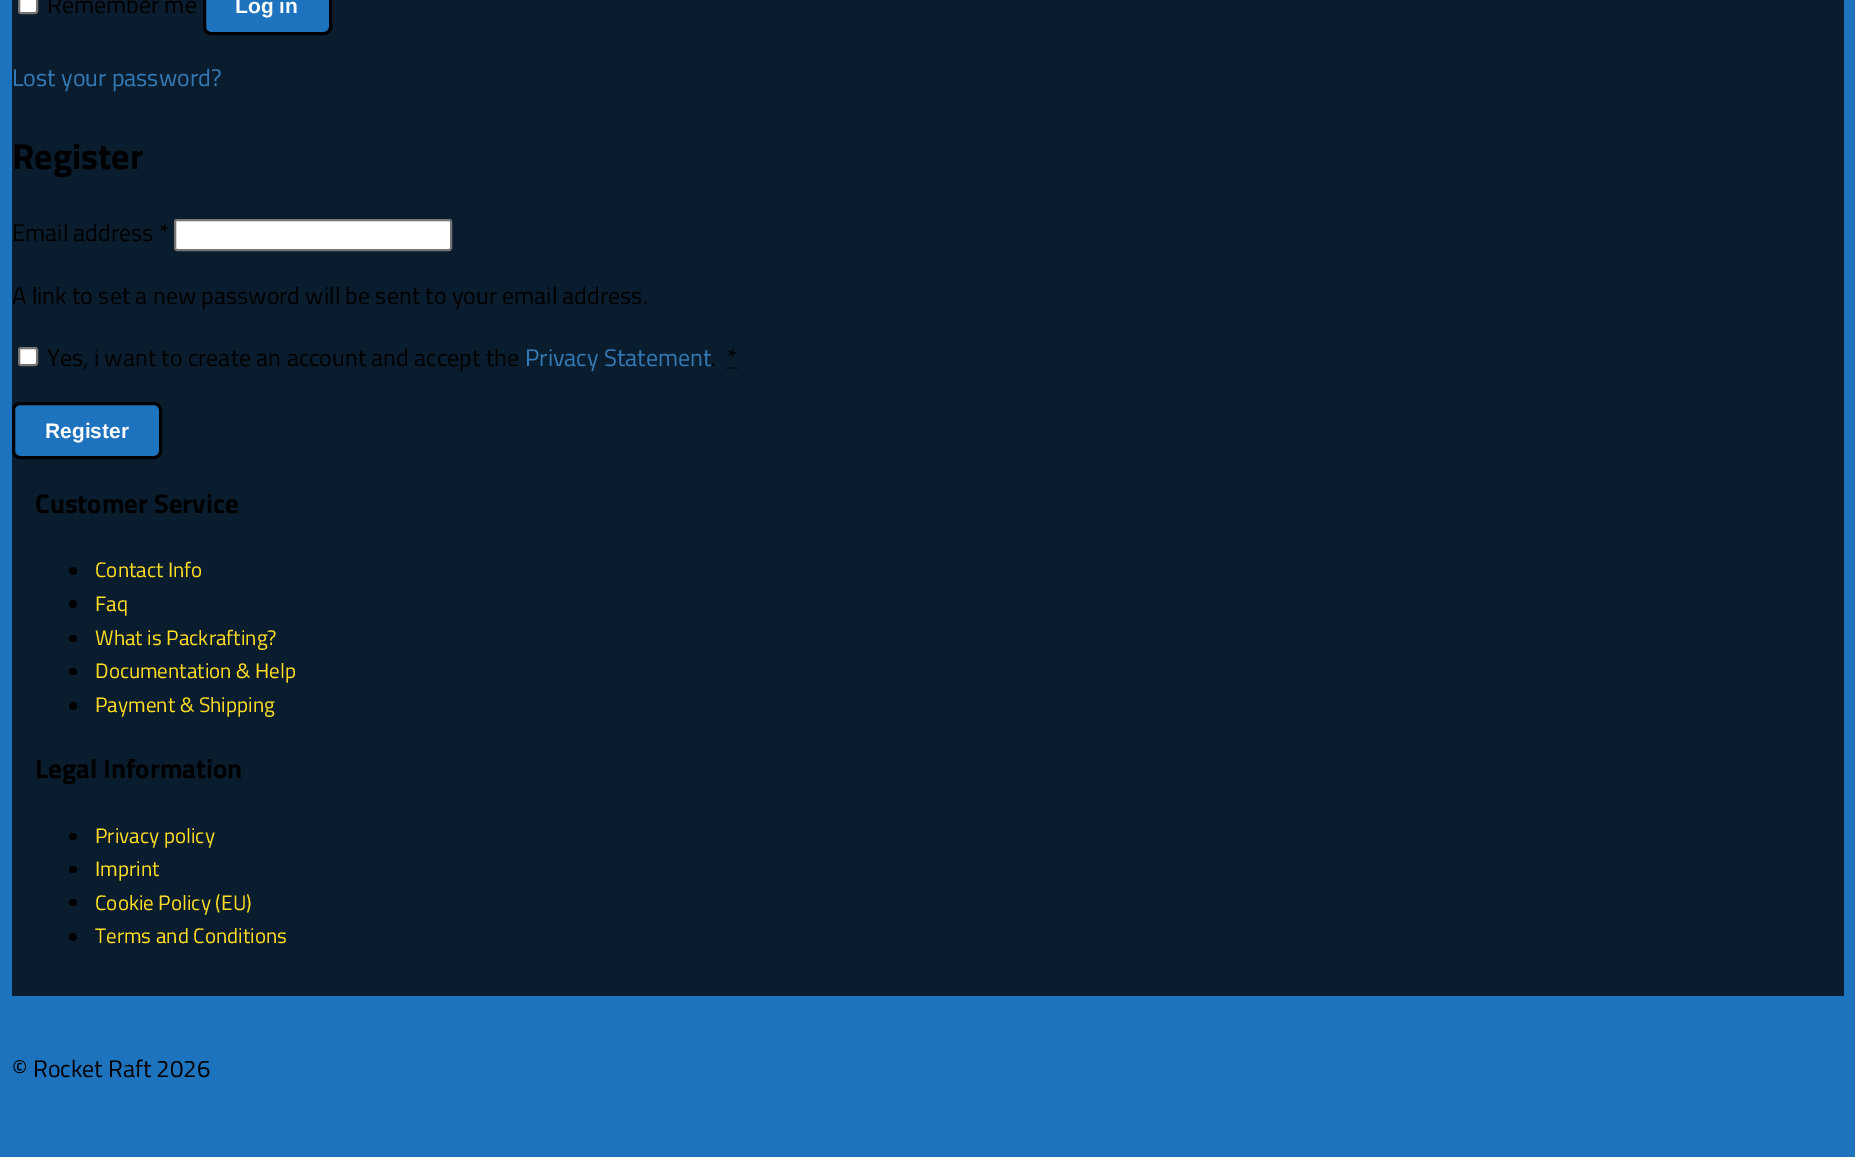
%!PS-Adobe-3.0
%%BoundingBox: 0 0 1855 1157
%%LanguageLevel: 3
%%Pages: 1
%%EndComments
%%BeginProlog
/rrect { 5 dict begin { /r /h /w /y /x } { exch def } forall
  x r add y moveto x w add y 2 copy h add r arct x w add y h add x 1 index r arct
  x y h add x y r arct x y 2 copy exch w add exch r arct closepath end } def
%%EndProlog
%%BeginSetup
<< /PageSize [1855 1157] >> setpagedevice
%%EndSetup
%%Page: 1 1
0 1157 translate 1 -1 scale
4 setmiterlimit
0.118 0.451 0.745 setrgbcolor
0 0 1855 1157 rectfill
0.039 0.114 0.18 setrgbcolor
12 0 1832 996 rectfill
1 setgray
19 -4 18 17 2 rrect gsave fill grestore
0.463 setgray
2 setlinewidth
stroke
0.118 0.451 0.745 setrgbcolor
204.5 -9.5 126 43 6.5 rrect gsave fill grestore
0 setgray
3 setlinewidth
stroke
1 setgray
175 220 276 30 2 rrect gsave fill grestore
0.463 setgray
2 setlinewidth
stroke
1 setgray
19 348 18 17 2 rrect gsave fill grestore
0.463 setgray
stroke
0 setgray
1.5 setlinewidth
newpath 727 368 moveto 728.5 368 lineto 730 368 moveto 731.5 368 lineto 733 368 moveto 734.5 368 lineto 736 368 moveto 737 368 lineto stroke
0.118 0.451 0.745 setrgbcolor
13.5 403.5 147 54 6.5 rrect gsave fill grestore
0 setgray
3 setlinewidth
stroke
newpath 73 571 4 0 360 arc closepath fill
newpath 73 604 4 0 360 arc closepath fill
69 635 8 7 3.5 rrect fill
69 668 8 7 3.5 rrect fill
newpath 73 706 4 0 360 arc closepath fill
69 833 8 7 3.5 rrect fill
69 866 8 7 3.5 rrect fill
69 899 8 7 3.5 rrect fill
newpath 73 937 4 0 360 arc closepath fill
/TitilliumWeb-Regular [24 0 0 -24 0 0] selectfont
47 13 moveto (Remember me) show
/LiberationSans-Bold [21 0 0 -21 0 0] selectfont
1 setgray
235 13 moveto (Log in) show
/TitilliumWeb-Regular [24 0 0 -24 0 0] selectfont
0.2 0.478 0.718 setrgbcolor
12 86 moveto (Lost your password?) show
/TitilliumWeb-Bold [36 0 0 -36 0 0] selectfont
0 setgray
12 169 moveto (Register) show
/TitilliumWeb-Regular [24 0 0 -24 0 0] selectfont
12 241 moveto (Email address *) show
12 304 moveto (A link to set a new password will be sent to your email address.) show
47 366 moveto (Yes, i want to create an account and accept the) show
0.2 0.478 0.718 setrgbcolor
525 366 moveto (Privacy Statement) show
0 setgray
727 366 moveto (*) show
711 366 moveto (.) show
/LiberationSans-Bold [21 0 0 -21 0 0] selectfont
1 setgray
45 438 moveto (Register) show
/TitilliumWeb-Bold [27 0 0 -27 0 0] selectfont
0 setgray
35 513 moveto (Customer Service) show
/TitilliumWeb-Regular [21 0 0 -21 0 0] selectfont
1 0.867 0.133 setrgbcolor
95 577 moveto (Contact Info) show
95 611 moveto (Faq) show
95 645 moveto (What is Packrafting?) show
95 678 moveto (Documentation & Help) show
95 712 moveto (Payment & Shipping) show
/TitilliumWeb-Bold [27 0 0 -27 0 0] selectfont
0 setgray
35 778 moveto (Legal Information) show
/TitilliumWeb-Regular [21 0 0 -21 0 0] selectfont
1 0.867 0.133 setrgbcolor
95 843 moveto (Privacy policy) show
95 876 moveto (Imprint) show
95 910 moveto (Cookie Policy \(EU\)) show
95 943 moveto (Terms and Conditions) show
/TitilliumWeb-Regular [24 0 0 -24 0 0] selectfont
0 setgray
12 1077 moveto (© Rocket Raft 2026) show
showpage
%%EOF
